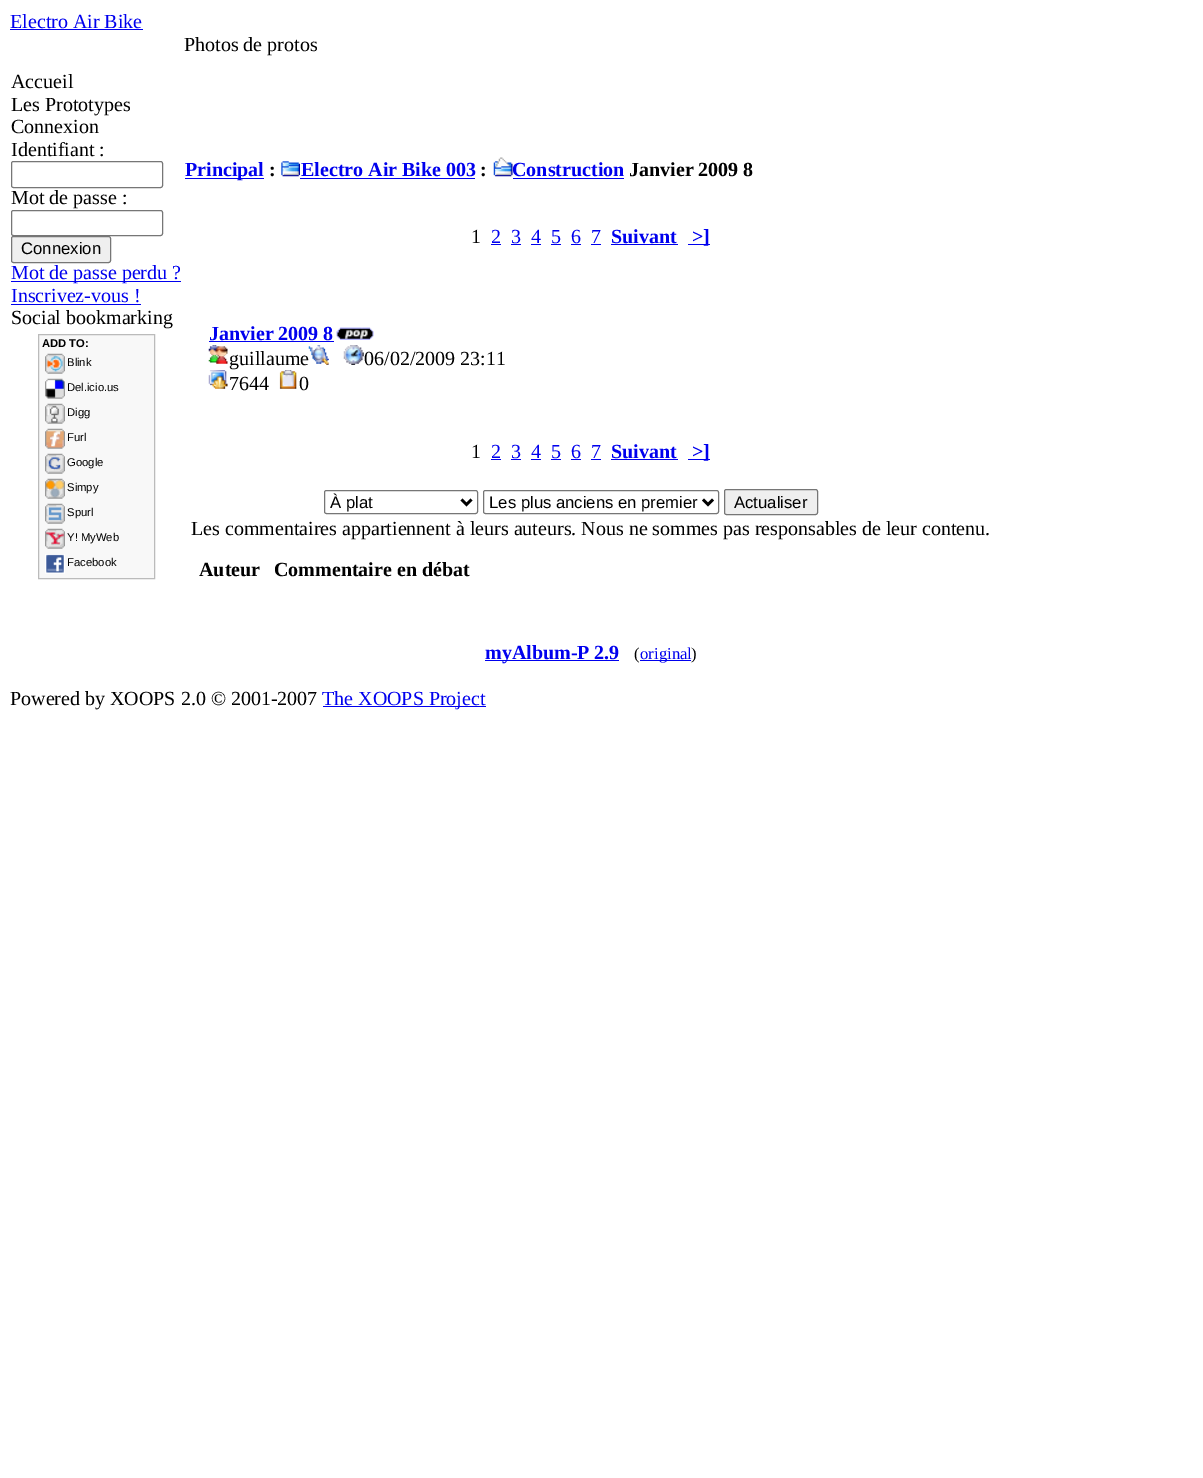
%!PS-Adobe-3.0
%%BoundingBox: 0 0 1203 1478
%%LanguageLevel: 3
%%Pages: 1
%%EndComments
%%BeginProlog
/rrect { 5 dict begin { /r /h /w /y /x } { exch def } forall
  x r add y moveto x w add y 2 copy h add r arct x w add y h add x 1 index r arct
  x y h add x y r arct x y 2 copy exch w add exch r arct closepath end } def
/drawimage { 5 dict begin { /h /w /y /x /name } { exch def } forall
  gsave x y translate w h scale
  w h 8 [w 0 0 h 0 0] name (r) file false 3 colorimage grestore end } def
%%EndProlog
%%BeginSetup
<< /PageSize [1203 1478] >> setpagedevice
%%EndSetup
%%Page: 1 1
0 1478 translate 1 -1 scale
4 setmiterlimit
1 setgray
0 0 1203 1478 rectfill
0 0 0.933 setrgbcolor
10 29 133 1 rectfill
0.463 setgray
11.5 161.5 151 26 2 rrect stroke
11.5 210.5 151 25 2 rrect stroke
0.937 setgray
11.5 236.5 99 26 2 rrect gsave fill grestore
0.463 setgray
stroke
0 0 0.933 setrgbcolor
11 281 170 1 rectfill
11 304 130 1 rectfill
0.973 setgray
newpath 38.5 334.5 moveto 154.5 334.5 lineto 154.5 578.5 lineto 38.5 578.5 lineto closepath gsave fill grestore
0.733 setgray
stroke
(images/1.raw) 45 353 20 21 drawimage
(images/2.raw) 45 378 20 21 drawimage
(images/3.raw) 45 403 20 21 drawimage
(images/4.raw) 45 428 20 21 drawimage
(images/5.raw) 45 453 20 21 drawimage
(images/6.raw) 45 478 20 21 drawimage
(images/7.raw) 45 503 20 21 drawimage
(images/8.raw) 45 528 20 21 drawimage
(images/9.raw) 45 554 20 20 drawimage
0 0 0.933 setrgbcolor
185 178 79 1 rectfill
(images/10.raw) 281 161 19 16 drawimage
300 178 175 1 rectfill
(images/11.raw) 493 157 20 20 drawimage
513 178 111 1 rectfill
491 244 10 1 rectfill
511 244 10 1 rectfill
531 244 10 1 rectfill
551 244 10 1 rectfill
571 244 10 1 rectfill
591 244 10 1 rectfill
611 244 67 1 rectfill
688 244 22 1 rectfill
209 341 125 1 rectfill
(images/12.raw) 336 327 38 13 drawimage
(images/13.raw) 208 345 20 19 drawimage
(images/14.raw) 308 345 21 20 drawimage
(images/15.raw) 343 345 21 20 drawimage
(images/16.raw) 208 370 20 19 drawimage
(images/17.raw) 279 370 18 19 drawimage
491 459 10 1 rectfill
511 459 10 1 rectfill
531 459 10 1 rectfill
551 459 10 1 rectfill
571 459 10 1 rectfill
591 459 10 1 rectfill
611 459 67 1 rectfill
688 459 22 1 rectfill
0.463 setgray
324.5 490.5 153 23 2 rrect stroke
0 setgray
2.5 setlinewidth
newpath 461.5 499.5 moveto 466.5 504.5 lineto 471.5 499.5 lineto stroke
0.463 setgray
1 setlinewidth
483.5 490.5 235 23 2 rrect stroke
0 setgray
2.5 setlinewidth
newpath 703 499.5 moveto 708 504.5 lineto 713 499.5 lineto stroke
0.937 setgray
724.5 489.5 93 25 2 rrect gsave fill grestore
0.463 setgray
1 setlinewidth
stroke
0 0 0.933 setrgbcolor
485 660 134 1 rectfill
640 660 51 1 rectfill
323 706 163 1 rectfill
/LiberationSerif-Regular [20 0 0 -20 0 0] selectfont
10 28 moveto (Electro Air Bike) show
0 setgray
11 88 moveto (Accueil) show
11 111 moveto (Les Prototypes) show
11 133 moveto (Connexion) show
11 156 moveto (Identifiant :) show
11 204 moveto (Mot de passe :) show
/LiberationSans-Regular [16.7 0 0 -16.7 0 0] selectfont
21 254 moveto (Connexion) show
/LiberationSerif-Regular [20 0 0 -20 0 0] selectfont
0 0 0.933 setrgbcolor
11 279 moveto (Mot de passe perdu ?) show
11 302 moveto (Inscrivez-vous !) show
0 setgray
11 324 moveto (Social bookmarking) show
/LiberationSans-Bold [11.25 0 0 -11.25 0 0] selectfont
42 347 moveto (ADD TO:) show
/LiberationSans-Regular [11.25 0 0 -11.25 0 0] selectfont
67 366 moveto (Blink) show
67 391 moveto (Del.icio.us) show
67 416 moveto (Digg) show
67 441 moveto (Furl) show
67 466 moveto (Google) show
67 491 moveto (Simpy) show
67 516 moveto (Spurl) show
67 541 moveto (Y! MyWeb) show
67 566 moveto (Facebook) show
/LiberationSerif-Regular [20 0 0 -20 0 0] selectfont
184 51 moveto (Photos de protos) show
/LiberationSerif-Bold [20 0 0 -20 0 0] selectfont
0 0 0.933 setrgbcolor
185 176 moveto (Principal) show
0 setgray
269 176 moveto (:) show
0 0 0.933 setrgbcolor
301 176 moveto (Electro Air Bike 003) show
0 setgray
480 176 moveto (:) show
0 0 0.933 setrgbcolor
512 176 moveto (Construction) show
0 setgray
629 176 moveto (Janvier 2009 8) show
/LiberationSerif-Regular [20 0 0 -20 0 0] selectfont
471 243 moveto (1) show
0 0 0.933 setrgbcolor
491 243 moveto (2) show
511 243 moveto (3) show
531 243 moveto (4) show
551 243 moveto (5) show
571 243 moveto (6) show
591 243 moveto (7) show
/LiberationSerif-Bold [20 0 0 -20 0 0] selectfont
611 243 moveto (Suivant) show
692 243 moveto (>]) show
209 340 moveto (Janvier 2009 8) show
/LiberationSerif-Regular [20 0 0 -20 0 0] selectfont
0 setgray
229 365 moveto (guillaume) show
364 365 moveto (06/02/2009 23:11) show
229 390 moveto (7644) show
299 390 moveto (0) show
471 458 moveto (1) show
0 0 0.933 setrgbcolor
491 458 moveto (2) show
511 458 moveto (3) show
531 458 moveto (4) show
551 458 moveto (5) show
571 458 moveto (6) show
591 458 moveto (7) show
/LiberationSerif-Bold [20 0 0 -20 0 0] selectfont
611 458 moveto (Suivant) show
692 458 moveto (>]) show
/LiberationSans-Regular [16.7 0 0 -16.7 0 0] selectfont
0 setgray
330 508 moveto (À plat) show
489 508 moveto (Les plus anciens en premier) show
734 508 moveto (Actualiser) show
/LiberationSerif-Regular [20 0 0 -20 0 0] selectfont
191 535 moveto (Les commentaires appartiennent à leurs auteurs. Nous ne sommes pas responsables de leur contenu.) show
/LiberationSerif-Bold [20 0 0 -20 0 0] selectfont
199 576 moveto (Auteur) show
274 576 moveto (Commentaire en débat) show
0 0 0.933 setrgbcolor
485 659 moveto (myAlbum-P 2.9) show
/LiberationSerif-Regular [16.7 0 0 -16.7 0 0] selectfont
0 setgray
634 659 moveto (\() show
0 0 0.933 setrgbcolor
640 659 moveto (original) show
0 setgray
691 659 moveto (\)) show
/LiberationSerif-Regular [20 0 0 -20 0 0] selectfont
10 705 moveto (Powered by XOOPS 2.0 © 2001-2007) show
0 0 0.933 setrgbcolor
322 705 moveto (The XOOPS Project) show
showpage
%%EOF
